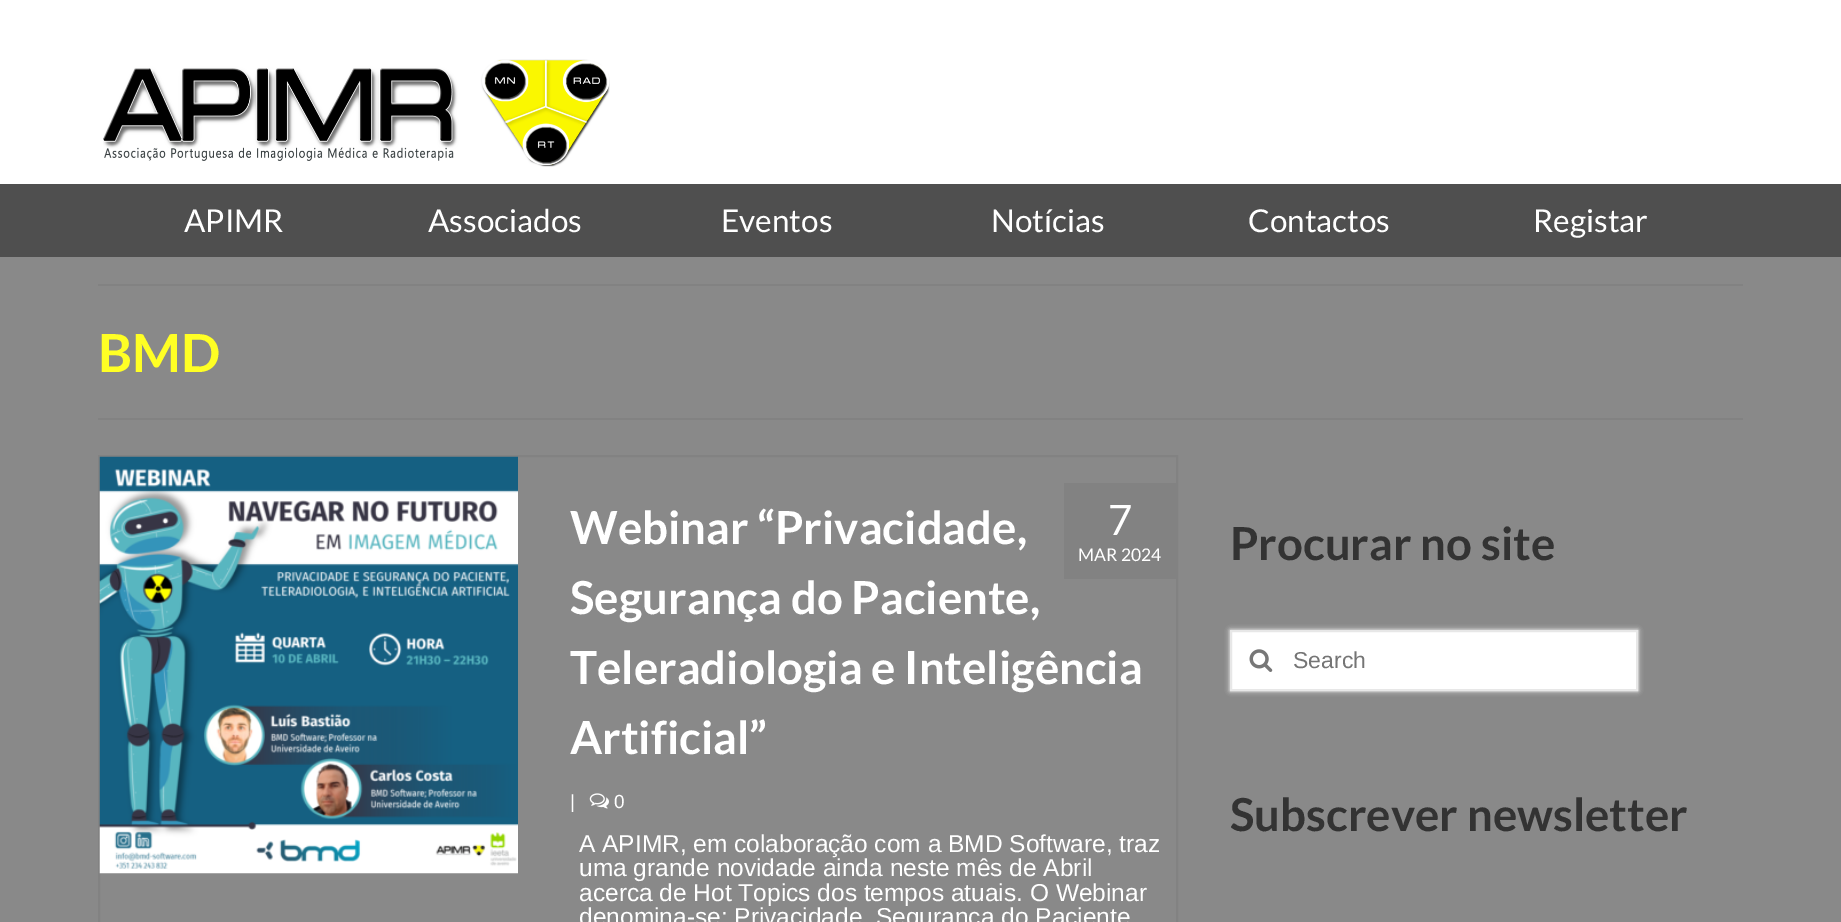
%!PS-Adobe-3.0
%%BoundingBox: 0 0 1841 922
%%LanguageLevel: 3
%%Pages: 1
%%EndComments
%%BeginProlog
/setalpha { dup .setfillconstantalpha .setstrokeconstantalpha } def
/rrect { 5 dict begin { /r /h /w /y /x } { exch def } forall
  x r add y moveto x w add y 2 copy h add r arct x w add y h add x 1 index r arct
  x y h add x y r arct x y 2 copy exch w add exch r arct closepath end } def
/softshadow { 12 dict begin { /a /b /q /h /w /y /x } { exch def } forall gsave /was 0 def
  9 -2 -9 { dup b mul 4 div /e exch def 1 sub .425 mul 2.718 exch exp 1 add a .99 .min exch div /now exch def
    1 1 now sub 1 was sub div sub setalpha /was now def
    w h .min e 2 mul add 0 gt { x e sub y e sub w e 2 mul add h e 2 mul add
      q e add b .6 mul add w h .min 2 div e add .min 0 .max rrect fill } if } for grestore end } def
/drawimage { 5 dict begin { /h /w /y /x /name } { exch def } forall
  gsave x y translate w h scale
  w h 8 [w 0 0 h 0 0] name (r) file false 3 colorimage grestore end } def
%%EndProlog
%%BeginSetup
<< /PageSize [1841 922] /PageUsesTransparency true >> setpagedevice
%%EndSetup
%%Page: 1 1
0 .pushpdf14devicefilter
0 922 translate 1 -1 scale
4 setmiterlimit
1 setgray
0 0 1841 922 rectfill
(images/1.raw) 103 59 507 108 drawimage
0.31 setgray
0 184 1841 73 rectfill
0.537 setgray
0 257 1841 665 rectfill
0.51 setgray
98 284 1645 2 rectfill
98 418 1645 2 rectfill
2 setlinewidth
99 456 1078 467 rectstroke
(images/2.raw) 99 456 419 418 drawimage
1064 483 112 96 rectfill
(images/3.raw) 589 793 20 16 drawimage
1 setgray
1230 630 408 61 0 2.5 1 softshadow
newpath 1231 631 moveto 1637 631 lineto 1637 690 lineto 1231 690 lineto closepath gsave fill grestore
0.906 setgray
stroke
(images/4.raw) 1249 649 24 23 drawimage
/Lato-Regular [31.5 0 0 -31.5 0 0] selectfont
1 setgray
184 232 moveto (APIMR) show
428 232 moveto (Associados) show
721 232 moveto (Eventos) show
991 232 moveto (Notícias) show
1248 232 moveto (Contactos) show
1533 232 moveto (Registar) show
/Lato-Bold [52.5 0 0 -52.5 0 0] selectfont
1 1 0.141 setrgbcolor
98 372 moveto (BMD) show
/Lato-Regular [42 0 0 -42 0 0] selectfont
1 setgray
1108 535 moveto (7) show
/Lato-Regular [17.5 0 0 -17.5 0 0] selectfont
1078 561 moveto (MAR 2024) show
/Lato-Bold [45.5 0 0 -45.5 0 0] selectfont
570 544 moveto (Webinar “Privacidade,) show
570 614 moveto (Segurança do Paciente,) show
570 684 moveto (Teleradiologia e Inteligência) show
570 754 moveto (Artificial”) show
/LiberationSans-Regular [19 0 0 -19 0 0] selectfont
570 808 moveto (|) show
614 808 moveto (0) show
/LiberationSans-Regular [24.5 0 0 -24.5 0 0] selectfont
579 852 moveto (A APIMR, em colaboração com a BMD Software, traz) show
579 876 moveto (uma grande novidade ainda neste mês de Abril) show
579 901 moveto (acerca de Hot Topics dos tempos atuais. O Webinar) show
579 925 moveto (denomina-se: Privacidade, Segurança do Paciente) show
/Lato-Bold [45.5 0 0 -45.5 0 0] selectfont
0.2 setgray
1230 560 moveto (Procurar no site) show
/LiberationSans-Regular [23 0 0 -23 0 0] selectfont
0.459 setgray
1293 668 moveto (Search) show
/Lato-Bold [45.5 0 0 -45.5 0 0] selectfont
0.2 setgray
1230 831 moveto (Subscrever newsletter) show
.poppdf14devicefilter showpage
%%EOF
